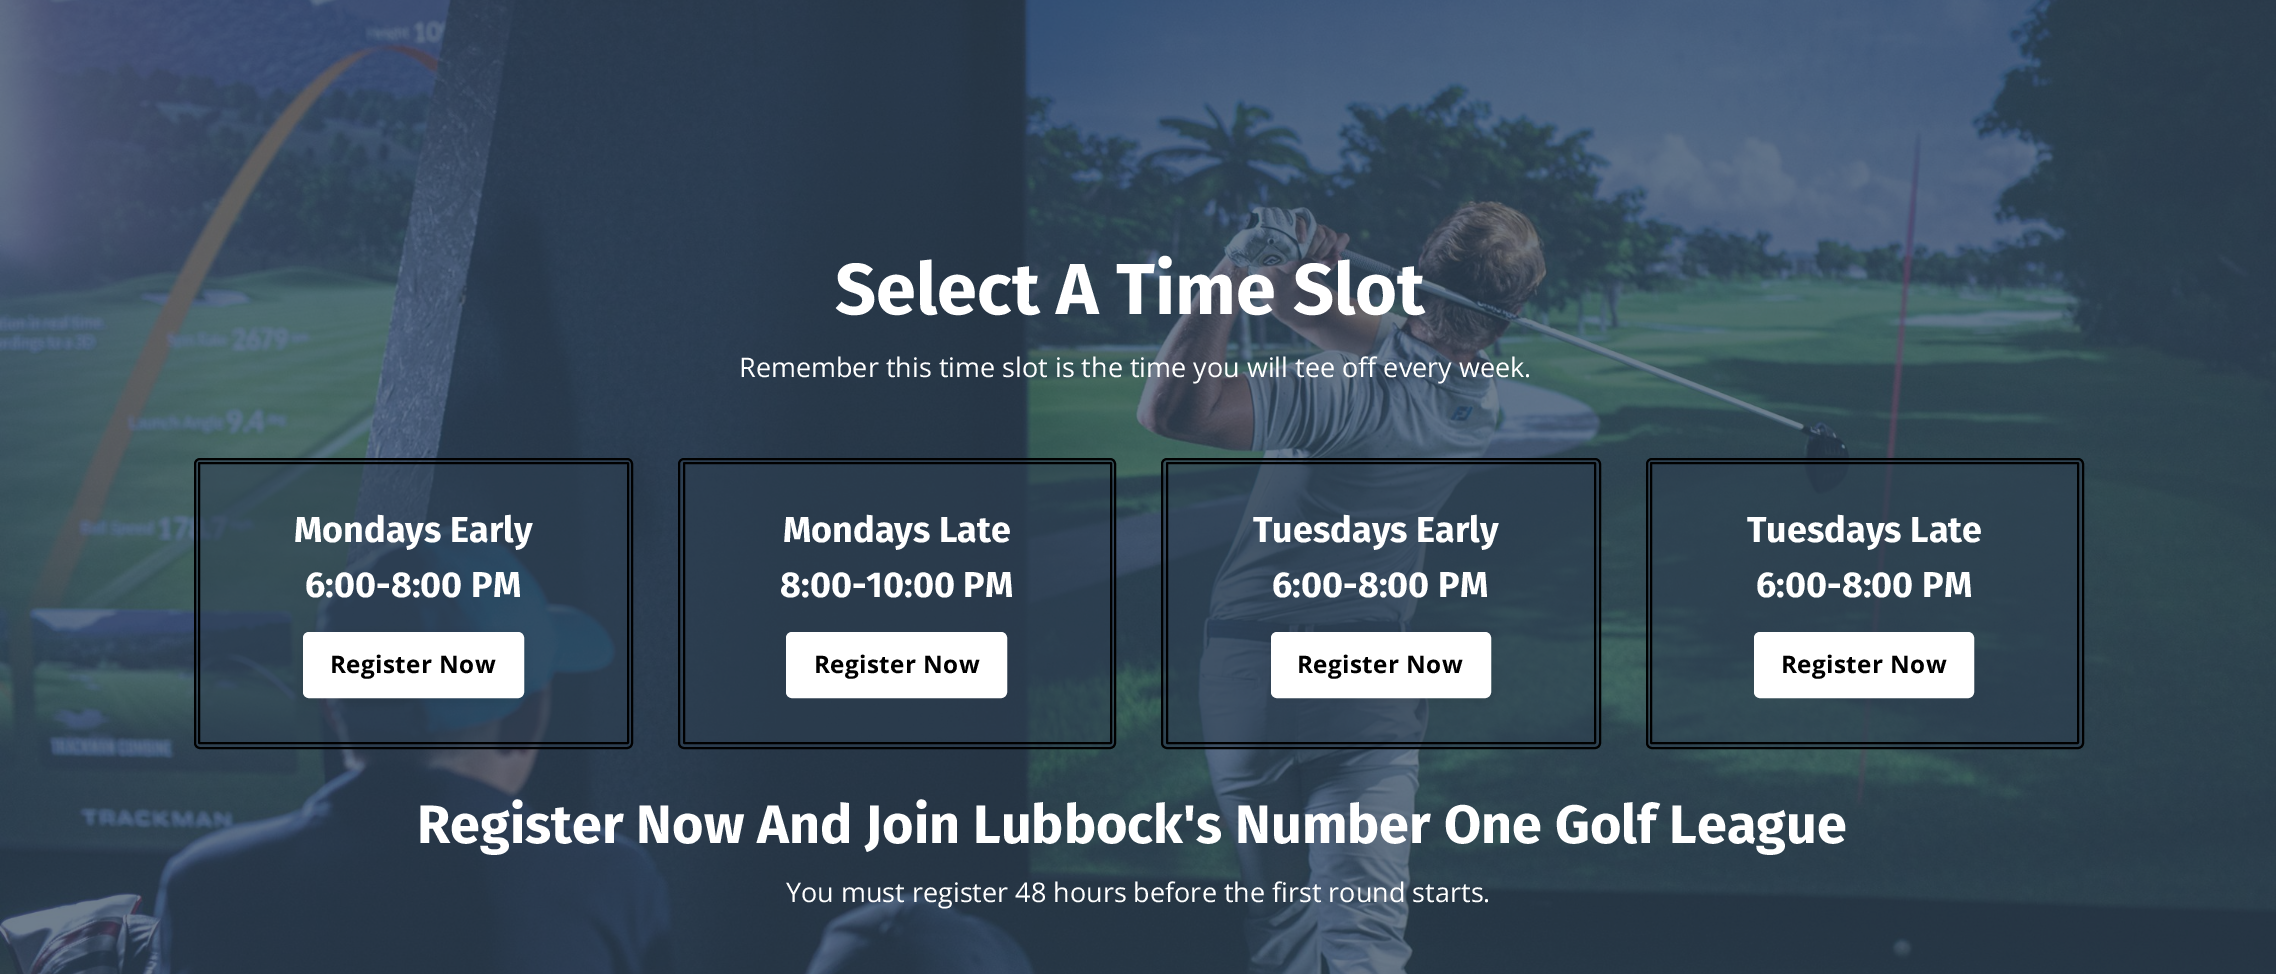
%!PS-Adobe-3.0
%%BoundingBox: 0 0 2276 974
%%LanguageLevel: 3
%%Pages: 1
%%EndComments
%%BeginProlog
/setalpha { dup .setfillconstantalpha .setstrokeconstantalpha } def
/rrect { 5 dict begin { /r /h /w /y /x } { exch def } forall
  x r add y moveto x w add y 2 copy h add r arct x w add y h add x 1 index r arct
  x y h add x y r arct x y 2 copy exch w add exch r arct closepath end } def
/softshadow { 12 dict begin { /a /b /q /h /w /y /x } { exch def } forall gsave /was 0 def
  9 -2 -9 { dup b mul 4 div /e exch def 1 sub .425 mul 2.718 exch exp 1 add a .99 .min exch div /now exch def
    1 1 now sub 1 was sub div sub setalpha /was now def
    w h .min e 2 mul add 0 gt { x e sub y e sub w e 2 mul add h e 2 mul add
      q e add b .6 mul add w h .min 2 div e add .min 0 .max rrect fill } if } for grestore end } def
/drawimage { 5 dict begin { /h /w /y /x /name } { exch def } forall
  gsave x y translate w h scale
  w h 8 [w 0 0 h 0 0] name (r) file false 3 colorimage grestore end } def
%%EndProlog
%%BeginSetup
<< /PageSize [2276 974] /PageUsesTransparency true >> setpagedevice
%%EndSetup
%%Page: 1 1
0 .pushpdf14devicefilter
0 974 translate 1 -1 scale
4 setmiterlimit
1 setgray
0 0 2276 974 rectfill
(images/1.raw) 0 0 2276 974 drawimage
0.6 setalpha
0.173 0.243 0.314 setrgbcolor
195 459 437 289 5 rrect fill
1 setalpha
0 setgray
2 setlinewidth
195 459 437 289 5 rrect stroke
199 463 429 280 0.5 rrect stroke
303 635 221 66 6 7.5 0.1 softshadow
1 setgray
304.5 633.5 218 63 4.5 rrect gsave fill grestore
3 setlinewidth
stroke
0.6 setalpha
0.173 0.243 0.314 setrgbcolor
679 459 436 289 5 rrect fill
1 setalpha
0 setgray
2 setlinewidth
679 459 436 289 5 rrect stroke
684 463 427 280 0.5 rrect stroke
1 setgray
787.5 633.5 218 63 4.5 rrect gsave fill grestore
3 setlinewidth
stroke
0.6 setalpha
0.173 0.243 0.314 setrgbcolor
1162 459 438 289 5 rrect fill
1 setalpha
0 setgray
2 setlinewidth
1162 459 438 289 5 rrect stroke
1167 463 428 280 0.5 rrect stroke
1271 635 220 66 6 7.5 0.1 softshadow
1 setgray
1272.5 633.5 217 63 4.5 rrect gsave fill grestore
3 setlinewidth
stroke
0.6 setalpha
0.173 0.243 0.314 setrgbcolor
1647 459 436 289 5 rrect fill
1 setalpha
0 setgray
2 setlinewidth
1647 459 436 289 5 rrect stroke
1651 463 427 280 0.5 rrect stroke
1 setgray
1755.5 633.5 217 63 4.5 rrect gsave fill grestore
3 setlinewidth
stroke
/FiraSans-Bold [72 0 0 -72 0 0] selectfont
835 314 moveto (Select A Time Slot) show
/OpenSans-Regular [27 0 0 -27 0 0] selectfont
739 377 moveto (Remember this time slot is the time you will tee off every week.) show
/FiraSans-Bold [36 0 0 -36 0 0] selectfont
294 542 moveto (Mondays Early) show
305 597 moveto (6:00-8:00 PM) show
/OpenSans-Bold [24.25 0 0 -24.25 0 0] selectfont
0 setgray
330 673 moveto 0.4 0 (Register Now) ashow
/FiraSans-Bold [36 0 0 -36 0 0] selectfont
1 setgray
783 542 moveto (Mondays Late) show
780 597 moveto (8:00-10:00 PM) show
/OpenSans-Bold [24.25 0 0 -24.25 0 0] selectfont
0 setgray
814 673 moveto 0.4 0 (Register Now) ashow
/FiraSans-Bold [36 0 0 -36 0 0] selectfont
1 setgray
1253 542 moveto (Tuesdays Early) show
1272 597 moveto (6:00-8:00 PM) show
/OpenSans-Bold [24.25 0 0 -24.25 0 0] selectfont
0 setgray
1297 673 moveto 0.4 0 (Register Now) ashow
/FiraSans-Bold [36 0 0 -36 0 0] selectfont
1 setgray
1747 542 moveto (Tuesdays Late) show
1756 597 moveto (6:00-8:00 PM) show
/OpenSans-Bold [24.25 0 0 -24.25 0 0] selectfont
0 setgray
1781 673 moveto 0.4 0 (Register Now) ashow
/FiraSans-Bold [54 0 0 -54 0 0] selectfont
1 setgray
417 843 moveto (Register Now And Join Lubbock's Number One Golf League) show
/OpenSans-Regular [27 0 0 -27 0 0] selectfont
786 902 moveto (You must register 48 hours before the first round starts.) show
.poppdf14devicefilter showpage
%%EOF
